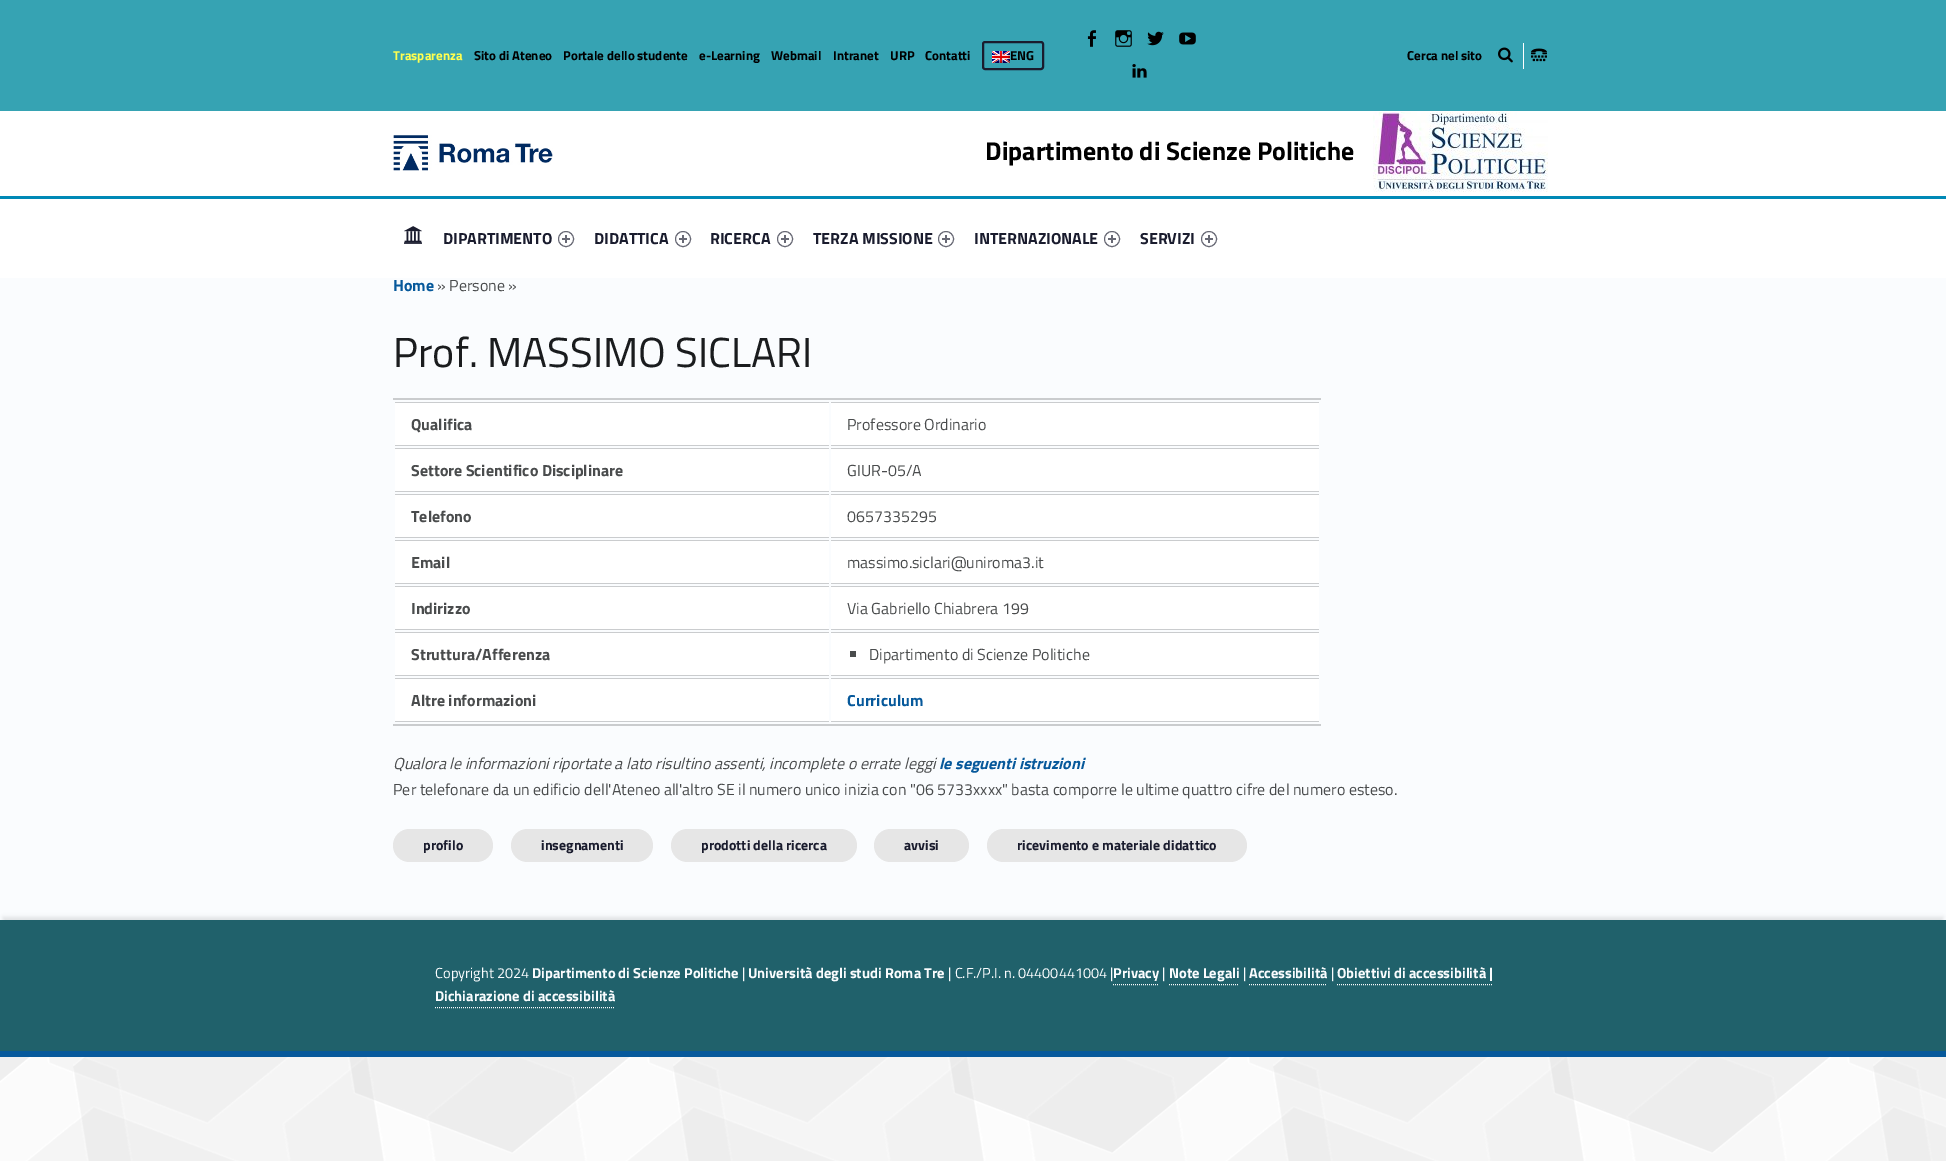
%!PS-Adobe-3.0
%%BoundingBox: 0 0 1946 1161
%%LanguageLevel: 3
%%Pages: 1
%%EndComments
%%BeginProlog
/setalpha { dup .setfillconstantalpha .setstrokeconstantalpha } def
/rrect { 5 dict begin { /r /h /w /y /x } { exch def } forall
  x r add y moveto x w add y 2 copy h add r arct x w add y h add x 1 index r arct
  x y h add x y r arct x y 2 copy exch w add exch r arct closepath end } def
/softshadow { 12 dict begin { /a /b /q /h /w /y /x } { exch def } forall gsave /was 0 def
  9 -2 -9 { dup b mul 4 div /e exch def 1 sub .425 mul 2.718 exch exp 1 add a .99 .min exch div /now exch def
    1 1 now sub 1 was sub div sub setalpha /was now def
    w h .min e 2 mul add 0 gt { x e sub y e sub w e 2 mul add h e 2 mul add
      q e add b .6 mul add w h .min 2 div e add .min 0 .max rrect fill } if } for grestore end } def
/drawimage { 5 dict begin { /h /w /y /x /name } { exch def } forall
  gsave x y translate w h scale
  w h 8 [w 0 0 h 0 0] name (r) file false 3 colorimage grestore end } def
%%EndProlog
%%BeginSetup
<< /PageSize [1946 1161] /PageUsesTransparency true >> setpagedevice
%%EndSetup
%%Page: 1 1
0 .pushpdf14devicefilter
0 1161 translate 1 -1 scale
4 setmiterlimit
1 setgray
0 0 1946 1161 rectfill
(images/1.raw) 0 1057 1946 104 drawimage
0.212 0.639 0.702 setrgbcolor
0 0 1946 111 rectfill
0.102 0.11 0.18 setrgbcolor
2 setlinewidth
983 42 60 27 2 rrect stroke
(images/2.raw) 992 51 18 12 drawimage
(images/3.raw) 1087 30 9 17 drawimage
(images/4.raw) 1115 30 17 17 drawimage
(images/5.raw) 1147 31 17 15 drawimage
(images/6.raw) 1179 32 17 13 drawimage
(images/7.raw) 1132 64 15 14 drawimage
(images/8.raw) 1498 47 15 16 drawimage
1 setgray
1523 43 1 26 rectfill
(images/9.raw) 1531 48 16 14 drawimage
(images/10.raw) 393 135 160 36 drawimage
(images/11.raw) 1373 112 175 80 drawimage
(images/12.raw) 404 226 18 18 drawimage
0.408 0.412 0.459 setrgbcolor
1 setlinewidth
newpath 566 239 7.5 0 360 arc closepath stroke
562 238 8 2 rectfill
565 235 2 8 rectfill
newpath 683 239 7.5 0 360 arc closepath stroke
679 238 8 2 rectfill
682 235 2 8 rectfill
newpath 785 239 7.5 0 360 arc closepath stroke
781 238 8 2 rectfill
784 235 2 8 rectfill
newpath 946 239 7.5 0 360 arc closepath stroke
942 238 8 2 rectfill
945 235 2 8 rectfill
newpath 1112 239 7.5 0 360 arc closepath stroke
1108 238 8 2 rectfill
1111 235 2 8 rectfill
newpath 1209 239 7.5 0 360 arc closepath stroke
1205 238 8 2 rectfill
1208 235 2 8 rectfill
0 0.537 0.714 setrgbcolor
0 196 1946 3 rectfill
0.98 0.988 0.996 setrgbcolor
0 278 1946 642 rectfill
0.792 0.8 0.808 setrgbcolor
393 398 928 2 rectfill
393 724 928 2 rectfill
1 setgray
395 403 434 42 rectfill
0.792 0.8 0.808 setrgbcolor
395 402 434 1 rectfill
395 445 434 1 rectfill
1 setgray
831 403 488 42 rectfill
0.792 0.8 0.808 setrgbcolor
831 402 488 1 rectfill
831 445 488 1 rectfill
1 setgray
395 449 434 42 rectfill
0.792 0.8 0.808 setrgbcolor
395 448 434 1 rectfill
395 491 434 1 rectfill
1 setgray
831 449 488 42 rectfill
0.792 0.8 0.808 setrgbcolor
831 448 488 1 rectfill
831 491 488 1 rectfill
1 setgray
395 495 434 42 rectfill
0.792 0.8 0.808 setrgbcolor
395 494 434 1 rectfill
395 537 434 1 rectfill
1 setgray
831 495 488 42 rectfill
0.792 0.8 0.808 setrgbcolor
831 494 488 1 rectfill
831 537 488 1 rectfill
1 setgray
395 541 434 42 rectfill
0.792 0.8 0.808 setrgbcolor
395 540 434 1 rectfill
395 583 434 1 rectfill
1 setgray
831 541 488 42 rectfill
0.792 0.8 0.808 setrgbcolor
831 540 488 1 rectfill
831 583 488 1 rectfill
1 setgray
395 587 434 42 rectfill
0.792 0.8 0.808 setrgbcolor
395 586 434 1 rectfill
395 629 434 1 rectfill
1 setgray
831 587 488 42 rectfill
0.792 0.8 0.808 setrgbcolor
831 586 488 1 rectfill
831 629 488 1 rectfill
1 setgray
395 633 434 42 rectfill
0.792 0.8 0.808 setrgbcolor
395 632 434 1 rectfill
395 675 434 1 rectfill
1 setgray
831 633 488 42 rectfill
0.792 0.8 0.808 setrgbcolor
831 632 488 1 rectfill
831 675 488 1 rectfill
0.29 0.298 0.302 setrgbcolor
850 651 6 6 rectfill
1 setgray
395 679 434 42 rectfill
0.792 0.8 0.808 setrgbcolor
395 678 434 1 rectfill
395 721 434 1 rectfill
1 setgray
831 679 488 42 rectfill
0.792 0.8 0.808 setrgbcolor
831 678 488 1 rectfill
831 721 488 1 rectfill
0.902 setgray
393 829 100 33 16.5 rrect fill
511 829 142 33 16.5 rrect fill
671 829 186 33 16.5 rrect fill
874 829 95 33 16.5 rrect fill
987 829 260 33 16.5 rrect fill
0 setgray
3 917 1940 131 0 2 0.1 softshadow
0.125 0.38 0.42 setrgbcolor
0 920 1946 131 rectfill
0.98 0.988 0.996 setrgbcolor
[1 1] 0 setdash
newpath 1113 984.5 moveto 1159 984.5 lineto stroke
newpath 1169 984.5 moveto 1239 984.5 lineto stroke
newpath 1249 984.5 moveto 1327 984.5 lineto stroke
newpath 1337 984.5 moveto 1493 984.5 lineto stroke
newpath 435 1007.5 moveto 615 1007.5 lineto stroke
0.027 0.349 0.608 setrgbcolor
0 1051 1946 6 rectfill
/TitilliumWeb-Bold [13 0 0 -13 0 0] selectfont
1 1 0.31 setrgbcolor
393 60 moveto (Trasparenza) show
0 setgray
474 60 moveto (Sito di Ateneo) show
563 60 moveto (Portale dello studente) show
699 60 moveto (e-Learning) show
771 60 moveto (Webmail) show
833 60 moveto (Intranet) show
890 60 moveto (URP) show
925 60 moveto (Contatti) show
1010 60 moveto (ENG) show
1407 60 moveto (Cerca nel sito) show
/TitilliumWeb-Bold [25.9 0 0 -25.9 0 0] selectfont
985 160 moveto (Dipartimento di Scienze Politiche) show
/TitilliumWeb-Bold [16 0 0 -16 0 0] selectfont
0.102 0.11 0.18 setrgbcolor
443 244 moveto (DIPARTIMENTO) show
594 244 moveto (DIDATTICA) show
710 244 moveto (RICERCA) show
813 244 moveto (TERZA MISSIONE) show
974 244 moveto (INTERNAZIONALE) show
1140 244 moveto (SERVIZI) show
0.027 0.349 0.608 setrgbcolor
393 291 moveto (Home) show
/TitilliumWeb-Regular [16 0 0 -16 0 0] selectfont
0.29 0.298 0.302 setrgbcolor
437 291 moveto (» Persone ») show
/TitilliumWeb-Regular [42 0 0 -42 0 0] selectfont
0.102 0.11 0.118 setrgbcolor
393 367 moveto (Prof. MASSIMO SICLARI) show
/TitilliumWeb-Bold [16 0 0 -16 0 0] selectfont
0.29 0.298 0.302 setrgbcolor
411 430 moveto (Qualifica) show
/TitilliumWeb-Regular [16 0 0 -16 0 0] selectfont
847 430 moveto (Professore Ordinario) show
/TitilliumWeb-Bold [16 0 0 -16 0 0] selectfont
411 476 moveto (Settore Scientifico Disciplinare) show
/TitilliumWeb-Regular [16 0 0 -16 0 0] selectfont
847 476 moveto (GIUR-05/A) show
/TitilliumWeb-Bold [16 0 0 -16 0 0] selectfont
411 522 moveto (Telefono) show
/TitilliumWeb-Regular [16 0 0 -16 0 0] selectfont
847 522 moveto (0657335295) show
/TitilliumWeb-Bold [16 0 0 -16 0 0] selectfont
411 568 moveto (Email) show
/TitilliumWeb-Regular [16 0 0 -16 0 0] selectfont
847 568 moveto (massimo.siclari@uniroma3.it) show
/TitilliumWeb-Bold [16 0 0 -16 0 0] selectfont
411 614 moveto (Indirizzo) show
/TitilliumWeb-Regular [16 0 0 -16 0 0] selectfont
847 614 moveto (Via Gabriello Chiabrera 199) show
/TitilliumWeb-Bold [16 0 0 -16 0 0] selectfont
411 660 moveto (Struttura/Afferenza) show
/TitilliumWeb-Regular [16 0 0 -16 0 0] selectfont
869 660 moveto (Dipartimento di Scienze Politiche) show
/TitilliumWeb-Bold [16 0 0 -16 0 0] selectfont
411 706 moveto (Altre informazioni) show
0.027 0.349 0.608 setrgbcolor
847 706 moveto (Curriculum) show
/TitilliumWeb-Italic [16 0 0 -16 0 0] selectfont
0.29 0.298 0.302 setrgbcolor
393 769 moveto (Qualora le informazioni riportate a lato risultino assenti, incomplete o errate leggi) show
/TitilliumWeb-BoldItalic [16 0 0 -16 0 0] selectfont
0.027 0.349 0.608 setrgbcolor
939 769 moveto (le seguenti istruzioni) show
/TitilliumWeb-Regular [16 0 0 -16 0 0] selectfont
0.29 0.298 0.302 setrgbcolor
393 795 moveto (Per telefonare da un edificio dell'Ateneo all'altro SE il numero unico inizia con "06 5733xxxx" basta comporre le ultime quattro cifre del numero esteso.) show
/TitilliumWeb-Bold [14 0 0 -14 0 0] selectfont
0.102 0.11 0.18 setrgbcolor
423 850 moveto (profilo) show
541 850 moveto (insegnamenti) show
701 850 moveto (prodotti della ricerca) show
904 850 moveto (avvisi) show
1017 850 moveto (ricevimento e materiale didattico) show
/TitilliumWeb-Regular [14.5 0 0 -14.5 0 0] selectfont
0.98 0.988 0.996 setrgbcolor
435 978 moveto (Copyright 2024) show
/TitilliumWeb-Bold [14.5 0 0 -14.5 0 0] selectfont
532 978 moveto (Dipartimento di Scienze Politiche) show
/TitilliumWeb-Regular [14.5 0 0 -14.5 0 0] selectfont
742 978 moveto (|) show
/TitilliumWeb-Bold [14.5 0 0 -14.5 0 0] selectfont
748 978 moveto (Università degli studi Roma Tre) show
/TitilliumWeb-Regular [14.5 0 0 -14.5 0 0] selectfont
948 978 moveto (| C.F./P.I. n. 04400441004 |) show
/TitilliumWeb-Bold [14.5 0 0 -14.5 0 0] selectfont
1113 978 moveto (Privacy) show
/TitilliumWeb-Regular [14.5 0 0 -14.5 0 0] selectfont
1162 978 moveto (|) show
/TitilliumWeb-Bold [14.5 0 0 -14.5 0 0] selectfont
1169 978 moveto (Note Legali) show
/TitilliumWeb-Regular [14.5 0 0 -14.5 0 0] selectfont
1243 978 moveto (|) show
/TitilliumWeb-Bold [14.5 0 0 -14.5 0 0] selectfont
1249 978 moveto (Accessibilità) show
/TitilliumWeb-Regular [14.5 0 0 -14.5 0 0] selectfont
1331 978 moveto (|) show
/TitilliumWeb-Bold [14.5 0 0 -14.5 0 0] selectfont
1337 978 moveto (Obiettivi di accessibilità |) show
435 1001 moveto (Dichiarazione di accessibilità) show
.poppdf14devicefilter showpage
%%EOF
